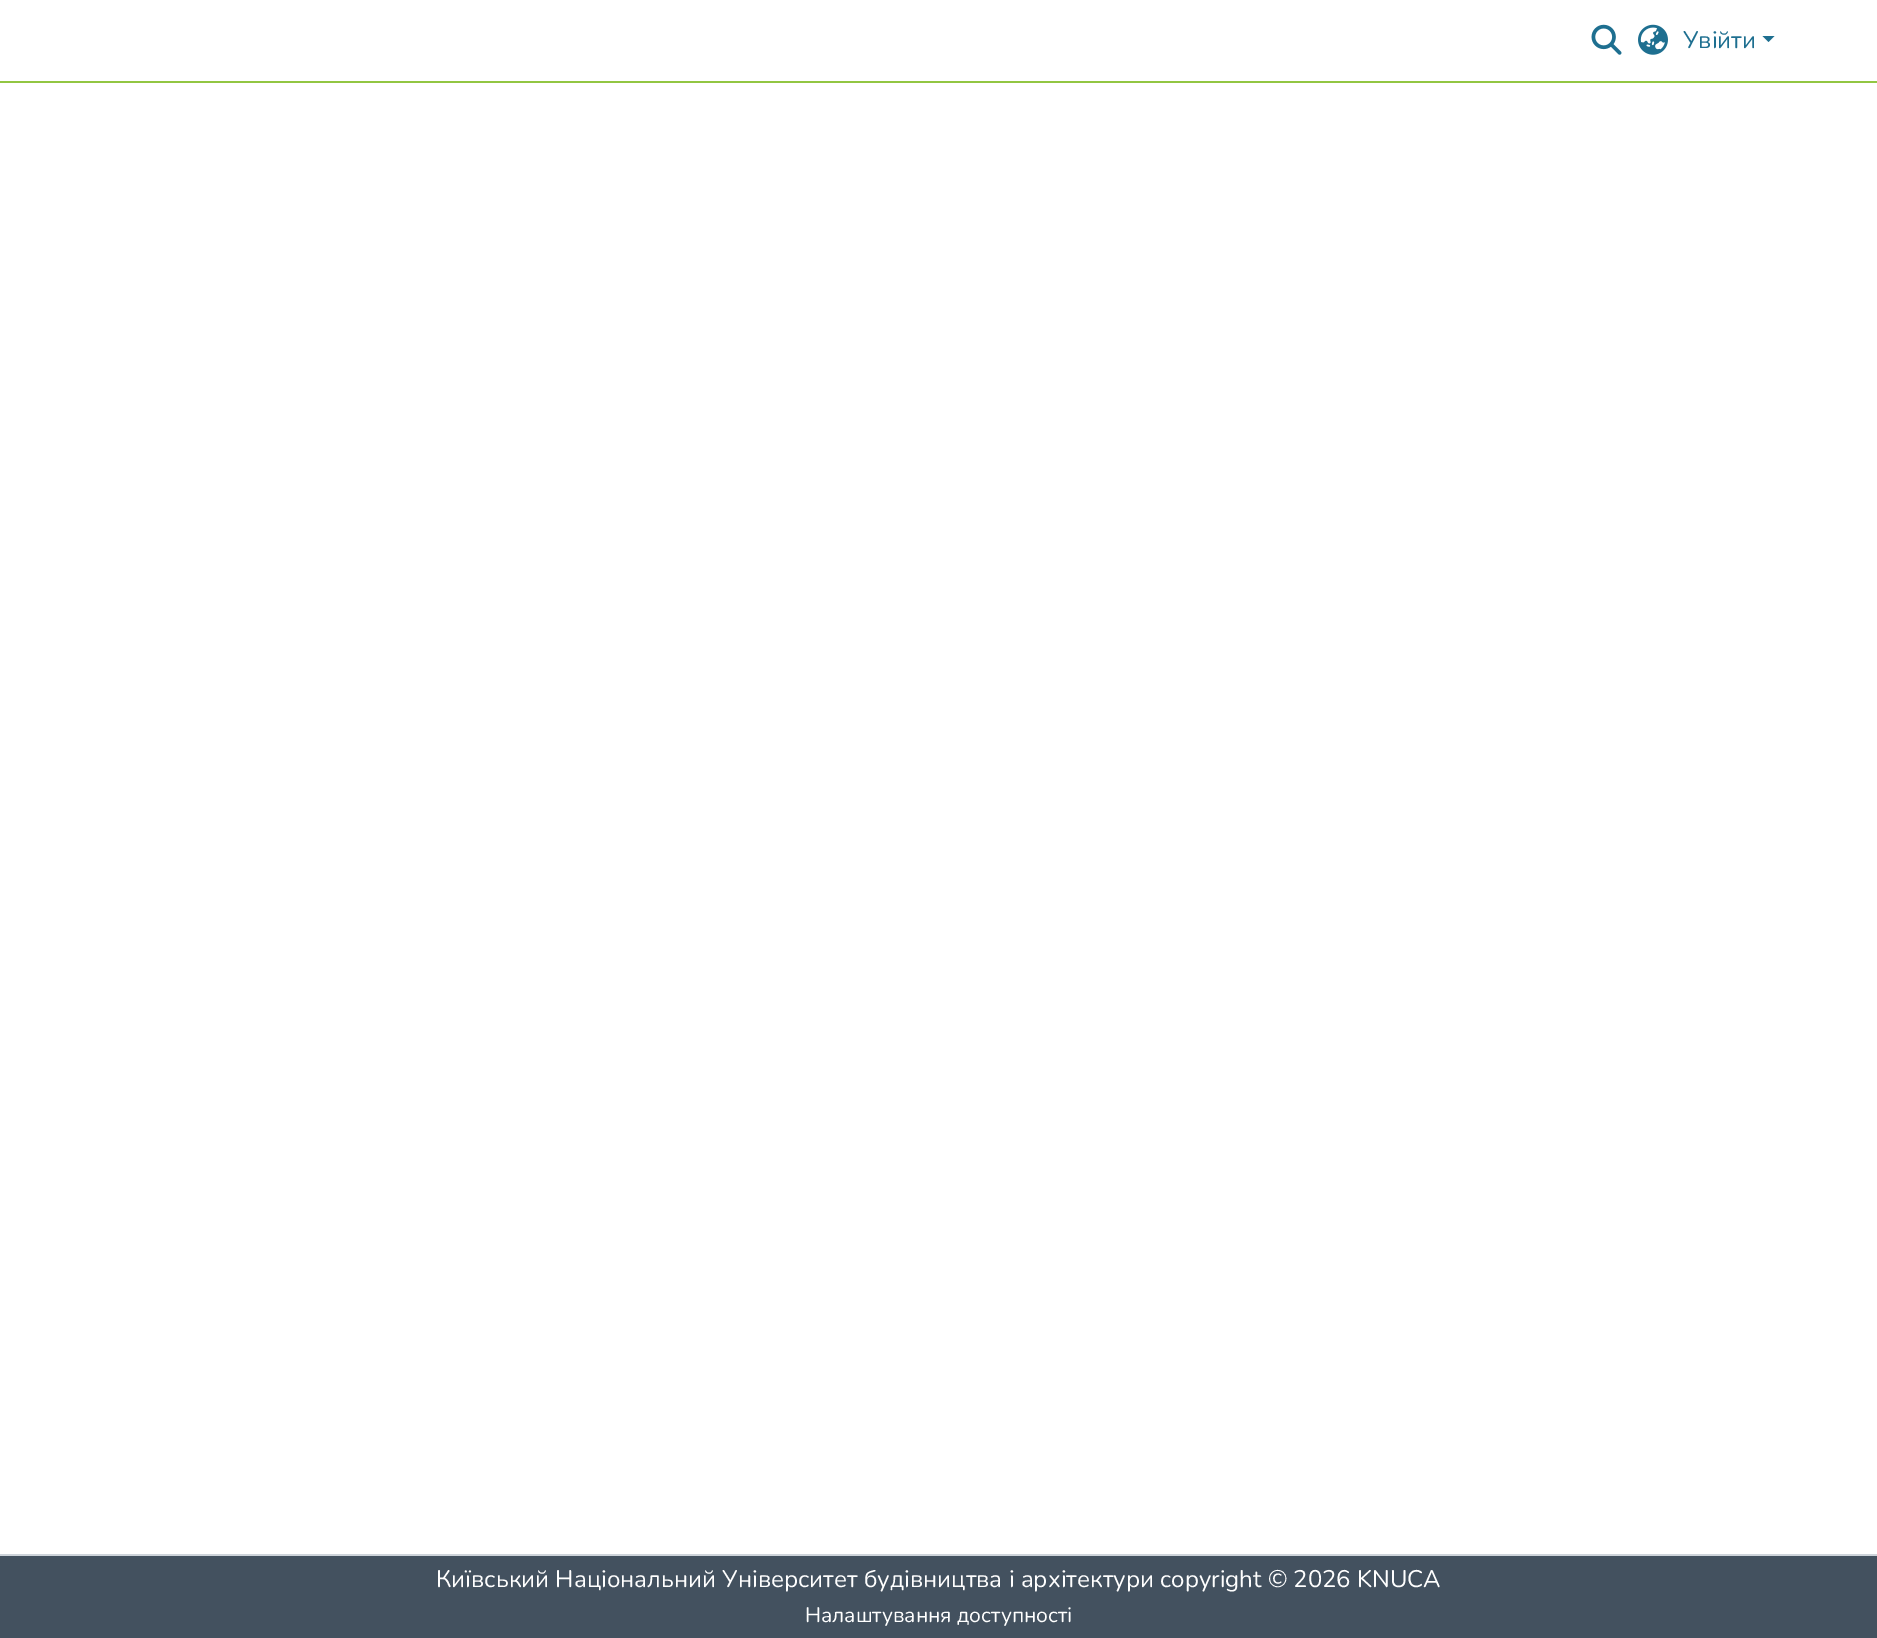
%!PS-Adobe-3.0
%%BoundingBox: 0 0 1877 1638
%%LanguageLevel: 3
%%Pages: 1
%%EndComments
%%BeginProlog
/drawimage { 5 dict begin { /h /w /y /x /name } { exch def } forall
  gsave x y translate w h scale
  w h 8 [w 0 0 h 0 0] name (r) file false 3 colorimage grestore end } def
%%EndProlog
%%BeginSetup
<< /PageSize [1877 1638] >> setpagedevice
%%EndSetup
%%Page: 1 1
0 1638 translate 1 -1 scale
4 setmiterlimit
1 setgray
0 0 1877 1638 rectfill
0.573 0.776 0.259 setrgbcolor
0 81 1877 2 rectfill
(images/1.raw) 1591 24 31 31 drawimage
(images/2.raw) 1638 24 30 31 drawimage
0.118 0.435 0.565 setrgbcolor
newpath 1762.5 36 moveto 1774.5 36 lineto 1768.5 42 lineto closepath fill
0.263 0.318 0.373 setrgbcolor
0 1556 1877 82 rectfill
0.808 0.831 0.855 setrgbcolor
0 1554 1877 2 rectfill
/Nunito-Regular [24 0 0 -24 0 0] selectfont
0.118 0.435 0.565 setrgbcolor
1683 48 moveto (Увійти) show
1 setgray
436 1587 moveto (Київський Національний Університет будівництва і архітектури copyright © 2026 KNUCA) show
/Nunito-Regular [21 0 0 -21 0 0] selectfont
805 1622 moveto (Налаштування доступності) show
showpage
%%EOF
